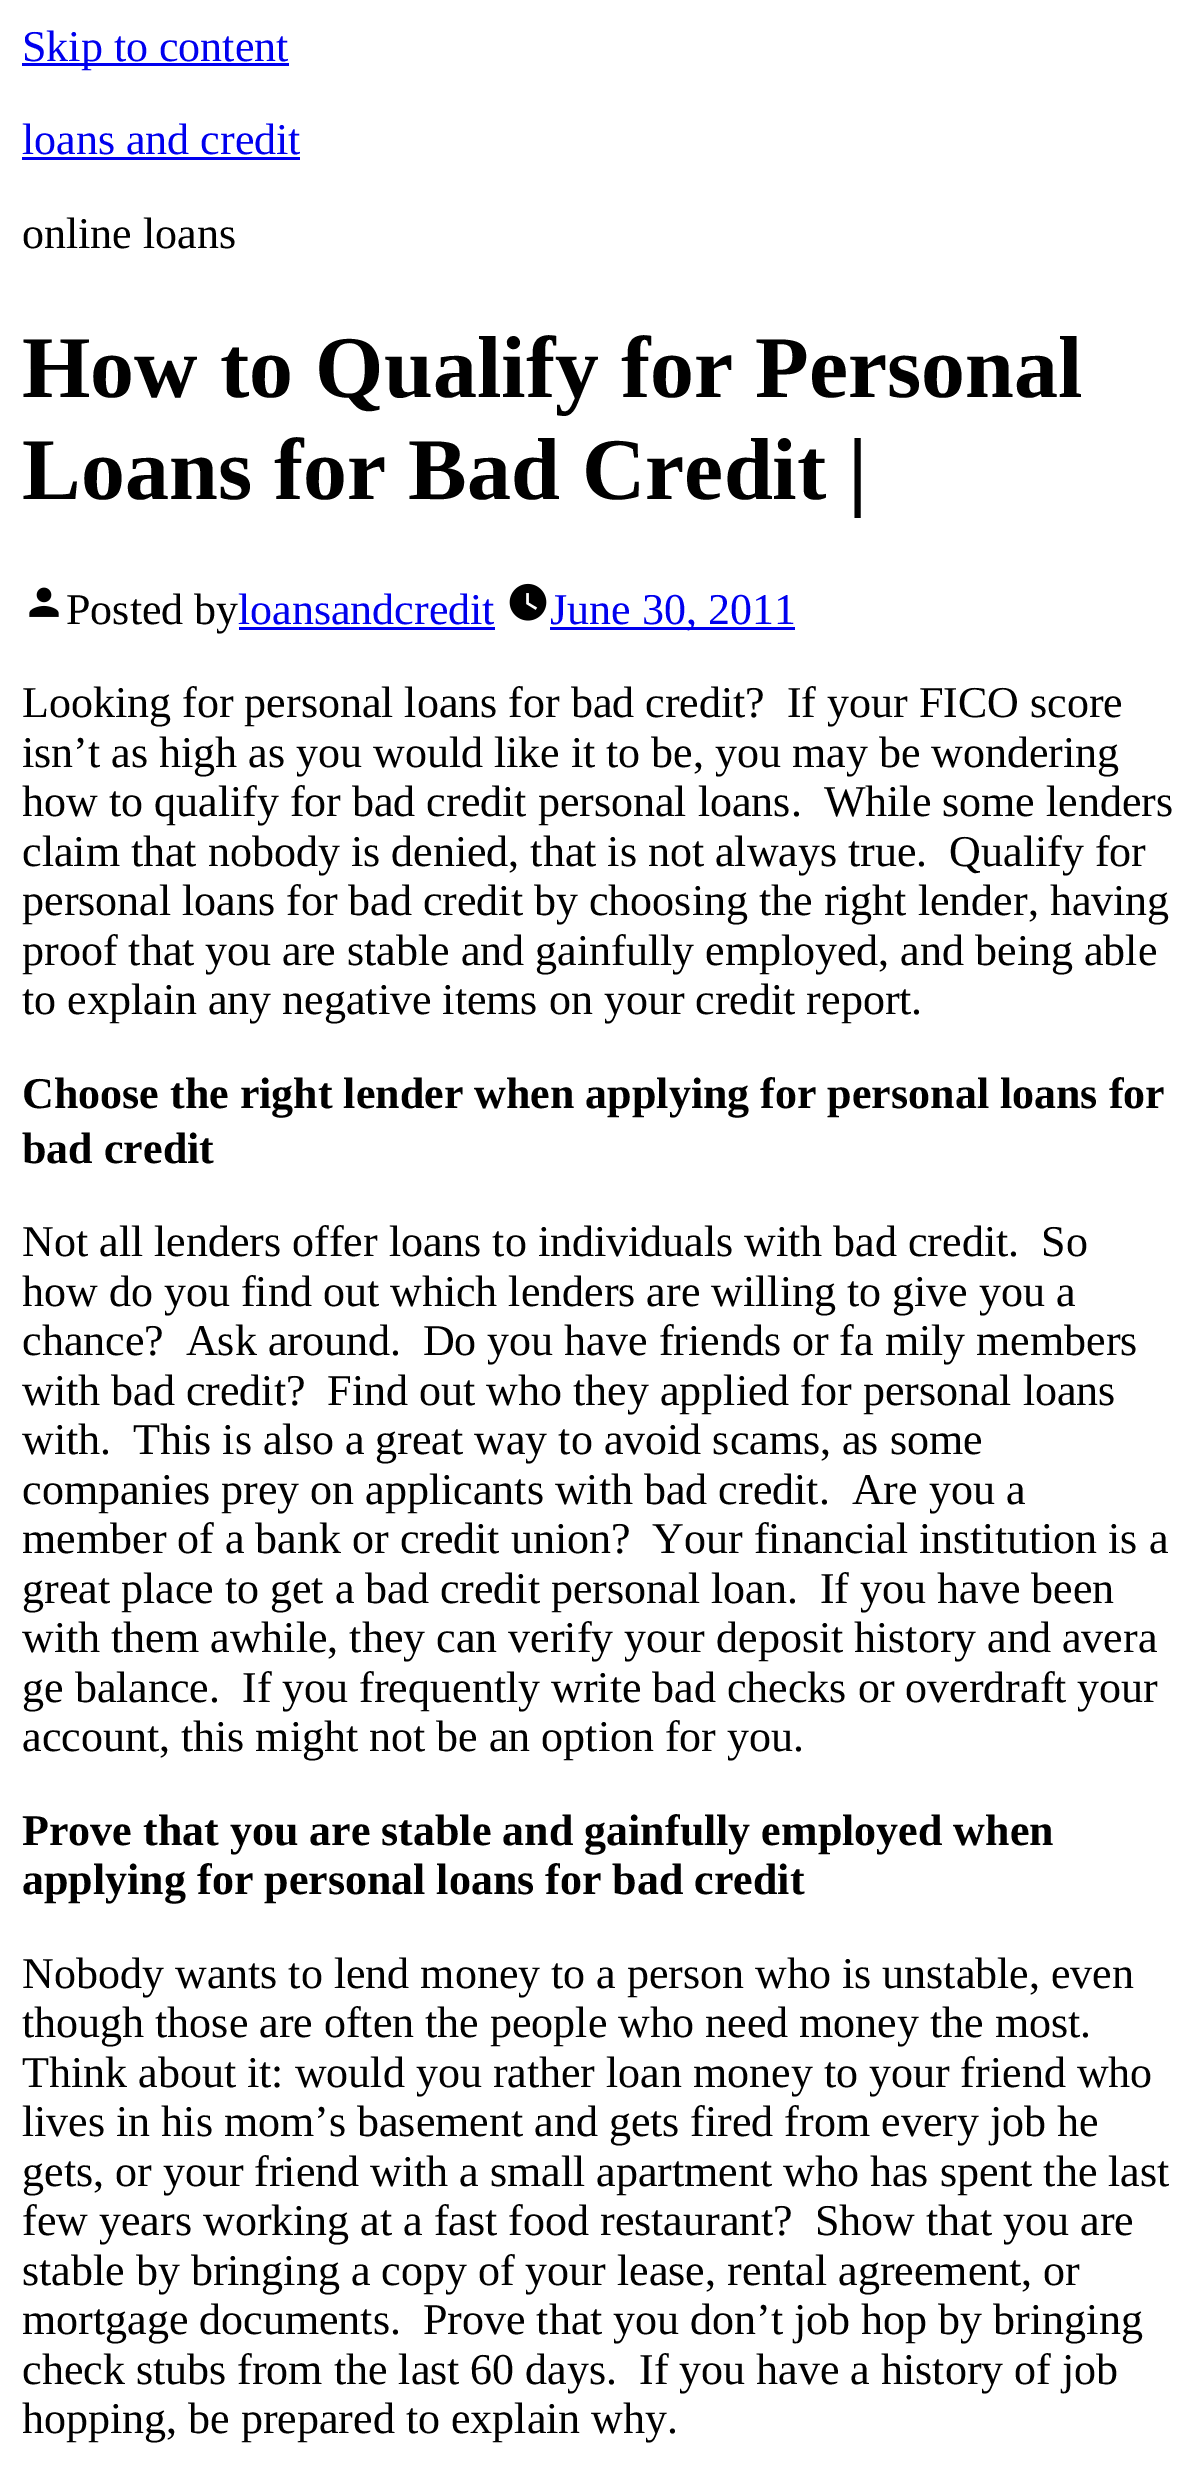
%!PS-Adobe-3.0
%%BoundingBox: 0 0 1196 2482
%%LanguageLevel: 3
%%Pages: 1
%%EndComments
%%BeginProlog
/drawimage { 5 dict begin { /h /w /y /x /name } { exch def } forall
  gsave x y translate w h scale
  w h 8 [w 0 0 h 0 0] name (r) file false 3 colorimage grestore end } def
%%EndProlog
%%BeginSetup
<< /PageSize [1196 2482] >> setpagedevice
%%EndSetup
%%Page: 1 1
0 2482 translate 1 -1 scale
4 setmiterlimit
1 setgray
0 0 1196 2482 rectfill
0 0 0.933 setrgbcolor
22 63 267 3 rectfill
22 157 278 3 rectfill
(images/1.raw) 29 587 30 30 drawimage
239 627 256 3 rectfill
(images/2.raw) 509 583 38 38 drawimage
550 627 245 3 rectfill
/LiberationSerif-Regular [44 0 0 -44 0 0] selectfont
22 61 moveto (Skip to content) show
22 154 moveto (loans and credit) show
0 setgray
22 248 moveto (online loans) show
/LiberationSerif-Bold [88 0 0 -88 0 0] selectfont
22 397 moveto (How to Qualify for Personal) show
22 499 moveto (Loans for Bad Credit |) show
/LiberationSerif-Regular [44 0 0 -44 0 0] selectfont
66 624 moveto (Posted by) show
0 0 0.933 setrgbcolor
238 624 moveto (loansandcredit) show
550 624 moveto (June 30, 2011) show
0 setgray
22 717 moveto (Looking for personal loans for bad credit?  If your FICO score) show
22 767 moveto (isn’t as high as you would like it to be, you may be wondering) show
22 816 moveto (how to qualify for bad credit personal loans.  While some lenders) show
22 866 moveto (claim that nobody is denied, that is not always true.  Qualify for) show
22 915 moveto (personal loans for bad credit by choosing the right lender, having) show
22 965 moveto (proof that you are stable and gainfully employed, and being able) show
22 1014 moveto (to explain any negative items on your credit report.) show
/LiberationSerif-Bold [44 0 0 -44 0 0] selectfont
22 1108 moveto (Choose the right lender when applying for personal loans for) show
22 1163 moveto (bad credit) show
/LiberationSerif-Regular [44 0 0 -44 0 0] selectfont
22 1256 moveto (Not all lenders offer loans to individuals with bad credit.  So) show
22 1306 moveto (how do you find out which lenders are willing to give you a) show
22 1355 moveto (chance?  Ask around.  Do you have friends or fa mily members) show
22 1405 moveto (with bad credit?  Find out who they applied for personal loans) show
22 1454 moveto (with.  This is also a great way to avoid scams, as some) show
22 1504 moveto (companies prey on applicants with bad credit.  Are you a) show
22 1553 moveto (member of a bank or credit union?  Your financial institution is a) show
22 1603 moveto (great place to get a bad credit personal loan.  If you have been) show
22 1652 moveto (with them awhile, they can verify your deposit history and avera) show
22 1702 moveto (ge balance.  If you frequently write bad checks or overdraft your) show
22 1751 moveto (account, this might not be an option for you.) show
/LiberationSerif-Bold [44 0 0 -44 0 0] selectfont
22 1845 moveto (Prove that you are stable and gainfully employed when) show
22 1894 moveto (applying for personal loans for bad credit) show
/LiberationSerif-Regular [44 0 0 -44 0 0] selectfont
22 1988 moveto (Nobody wants to lend money to a person who is unstable, even) show
22 2037 moveto (though those are often the people who need money the most.) show
22 2087 moveto (Think about it: would you rather loan money to your friend who) show
22 2136 moveto (lives in his mom’s basement and gets fired from every job he) show
22 2186 moveto (gets, or your friend with a small apartment who has spent the last) show
22 2235 moveto (few years working at a fast food restaurant?  Show that you are) show
22 2285 moveto (stable by bringing a copy of your lease, rental agreement, or) show
22 2334 moveto (mortgage documents.  Prove that you don’t job hop by bringing) show
22 2384 moveto (check stubs from the last 60 days.  If you have a history of job) show
22 2433 moveto (hopping, be prepared to explain why.) show
showpage
%%EOF
